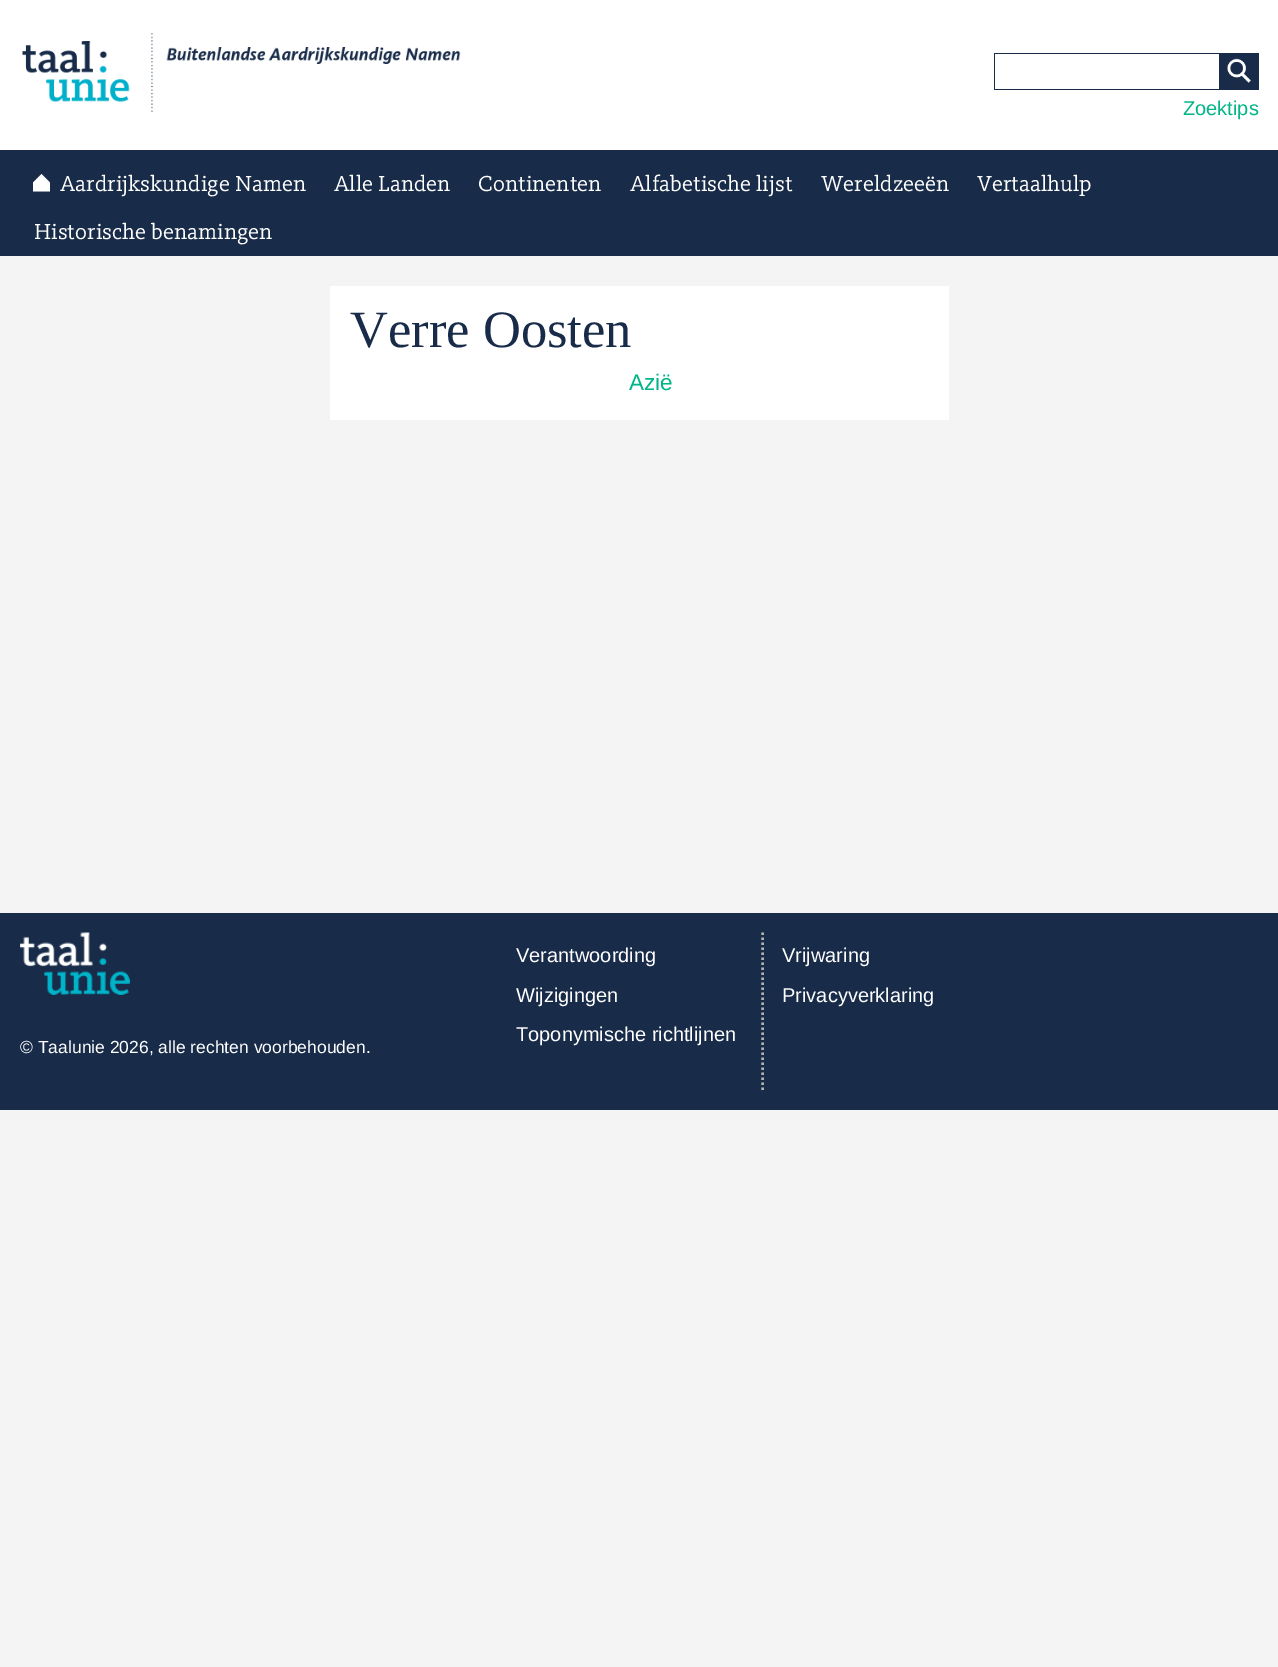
%!PS-Adobe-3.0
%%BoundingBox: 0 0 1278 1667
%%LanguageLevel: 3
%%Pages: 1
%%EndComments
%%BeginProlog
/drawimage { 5 dict begin { /h /w /y /x /name } { exch def } forall
  gsave x y translate w h scale
  w h 8 [w 0 0 h 0 0] name (r) file false 3 colorimage grestore end } def
%%EndProlog
%%BeginSetup
<< /PageSize [1278 1667] >> setpagedevice
%%EndSetup
%%Page: 1 1
0 1667 translate 1 -1 scale
4 setmiterlimit
0.957 setgray
0 0 1278 1667 rectfill
1 setgray
0 0 1278 150 rectfill
(images/1.raw) 22 33 439 79 drawimage
0.094 0.169 0.286 setrgbcolor
994 53 225 1 rectfill
994 89 225 1 rectfill
994 53 1 37 rectfill
1219 53 40 37 rectfill
(images/2.raw) 1227 58 24 25 drawimage
0 150 1278 106 rectfill
1 setgray
newpath 33 182.5 moveto 33 191.5 lineto 50 191.5 lineto 50 182.5 lineto 41.5 174 lineto closepath eofill
330 286 619 134 rectfill
0.094 0.169 0.286 setrgbcolor
0 913 1278 197 rectfill
(images/3.raw) 20 932 110 63 drawimage
0.702 setgray
2.5 setlinewidth
[2.5 2.5] 0 setdash
newpath 762.5 932.5 moveto 762.5 1090 lineto stroke
/LiberationSans-Regular [20 0 0 -20 0 0] selectfont
0 0.71 0.533 setrgbcolor
1183 115 moveto (Zoektips) show
/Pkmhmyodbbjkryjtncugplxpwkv-Regular [22.5 0 0 -22.5 0 0] selectfont
1 setgray
60 191 moveto (Aardrijkskundige Namen) show
334 191 moveto (Alle Landen) show
478 191 moveto (Continenten) show
630 191 moveto (Alfabetische lijst) show
821 191 moveto (Wereldzeeën) show
977 191 moveto (Vertaalhulp) show
34 239 moveto (Historische benamingen) show
/LiberationSerif-Regular [52.5 0 0 -52.5 0 0] selectfont
0.094 0.169 0.286 setrgbcolor
350 347 moveto (Verre Oosten) show
/LiberationSans-Regular [22.5 0 0 -22.5 0 0] selectfont
0 0.71 0.533 setrgbcolor
629 390 moveto (Azië) show
/LiberationSans-Regular [20 0 0 -20 0 0] selectfont
1 setgray
516 962 moveto (Verantwoording) show
516 1002 moveto (Wijzigingen) show
516 1041 moveto (Toponymische richtlijnen) show
782 962 moveto (Vrijwaring) show
782 1002 moveto (Privacyverklaring) show
/LiberationSans-Regular [17.5 0 0 -17.5 0 0] selectfont
20 1053 moveto (© Taalunie 2026, alle rechten voorbehouden.) show
showpage
%%EOF
